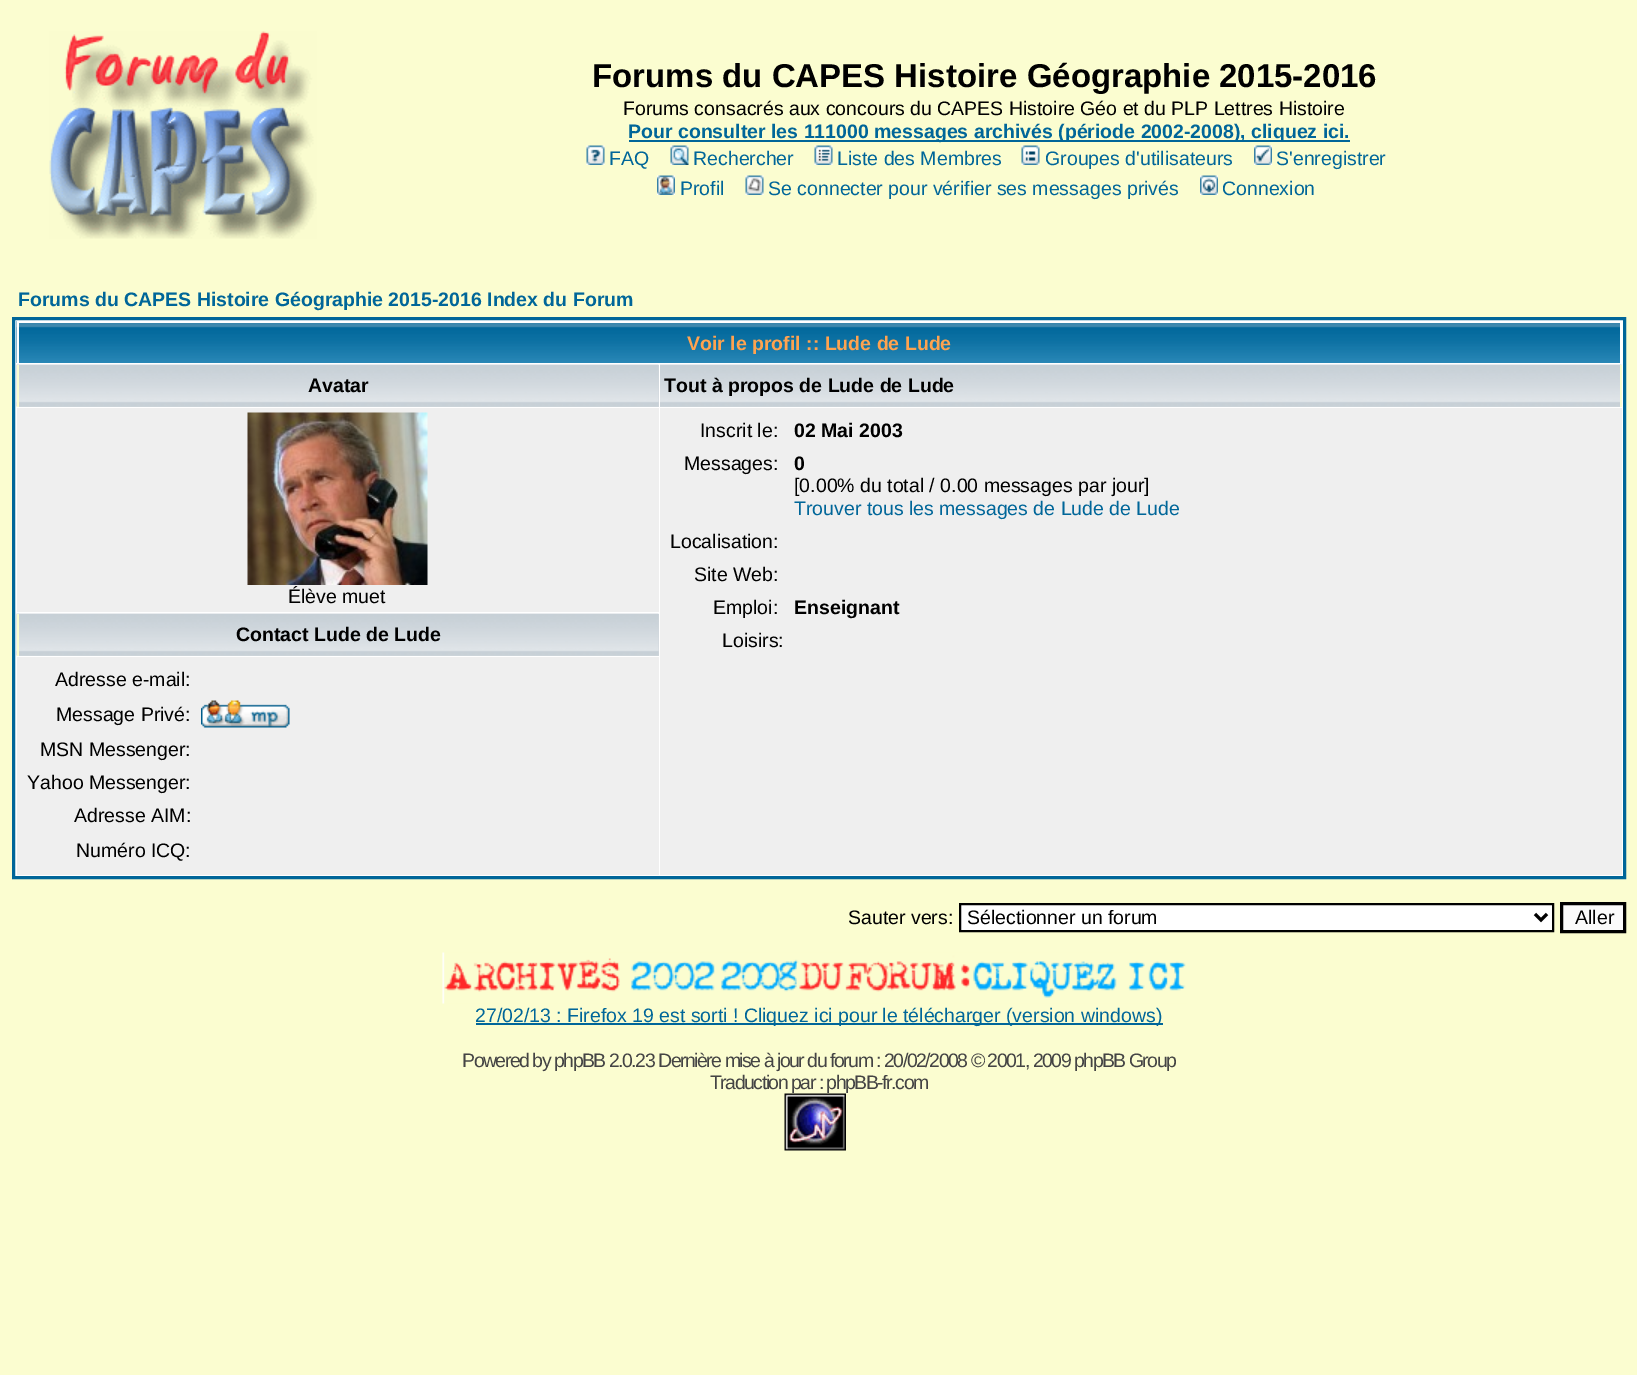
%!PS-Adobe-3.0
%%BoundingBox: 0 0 1637 1375
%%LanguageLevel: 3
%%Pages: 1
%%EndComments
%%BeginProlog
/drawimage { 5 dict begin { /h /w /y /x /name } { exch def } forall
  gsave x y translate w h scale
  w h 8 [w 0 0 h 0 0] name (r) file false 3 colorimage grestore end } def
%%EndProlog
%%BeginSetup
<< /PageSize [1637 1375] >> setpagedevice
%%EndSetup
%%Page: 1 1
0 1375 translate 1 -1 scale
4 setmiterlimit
0.984 0.992 0.816 setrgbcolor
0 0 1637 1375 rectfill
(images/1.raw) 49 31 268 208 drawimage
0 0.4 0.6 setrgbcolor
629 140 721 2 rectfill
(images/2.raw) 586 145 19 20 drawimage
(images/3.raw) 670 145 19 20 drawimage
(images/4.raw) 814 145 19 20 drawimage
(images/5.raw) 1021 145 19 20 drawimage
(images/6.raw) 1254 145 18 20 drawimage
(images/7.raw) 657 175 18 20 drawimage
(images/8.raw) 745 175 19 20 drawimage
(images/9.raw) 1200 175 18 20 drawimage
1 setgray
newpath 13.5 318.5 moveto 1624.5 318.5 lineto 1624.5 877.5 lineto 13.5 877.5 lineto closepath gsave fill grestore
0 0.4 0.6 setrgbcolor
3 setlinewidth
stroke
(images/10.raw) 16 321 1604 42 drawimage
1 setgray
17 321 1605 2 rectfill
17 321 2 42 rectfill
0.82 0.843 0.863 setrgbcolor
19 365 640 42 rectfill
(images/11.raw) 16 364 643 43 drawimage
0.984 0.992 0.816 setrgbcolor
17 365 2 42 rectfill
0.82 0.843 0.863 setrgbcolor
660 406 960 1 rectfill
(images/12.raw) 660 364 962 43 drawimage
0.984 0.992 0.816 setrgbcolor
1620 365 2 42 rectfill
0.937 setgray
17 408 642 204 rectfill
(images/13.raw) 247 412 181 173 drawimage
660 408 962 467 rectfill
0.82 0.843 0.863 setrgbcolor
19 614 640 42 rectfill
(images/11.raw) 16 613 643 43 drawimage
0.984 0.992 0.816 setrgbcolor
17 614 2 42 rectfill
0.937 setgray
17 657 642 218 rectfill
(images/14.raw) 201 700 89 28 drawimage
1 setgray
newpath 960 904 moveto 1553 904 lineto 1553 931 lineto 960 931 lineto closepath gsave fill grestore
0 setgray
2 setlinewidth
stroke
3 setlinewidth
newpath 1535 914 moveto 1541 920 lineto 1547 914 lineto stroke
0.98 setgray
newpath 1561.5 903.5 moveto 1624.5 903.5 lineto 1624.5 931.5 lineto 1561.5 931.5 lineto closepath gsave fill grestore
0 setgray
stroke
(images/15.raw) 442 952 744 52 drawimage
0 0.4 0.6 setrgbcolor
476 1023 687 2 rectfill
/LiberationSans-Bold [33 0 0 -33 0 0] selectfont
0 setgray
592 87 moveto (Forums du CAPES Histoire Géographie 2015-2016) show
/LiberationSans-Regular [19.5 0 0 -19.5 0 0] selectfont
623 115 moveto (Forums consacrés aux concours du CAPES Histoire Géo et du PLP Lettres Histoire) show
/LiberationSans-Bold [19.5 0 0 -19.5 0 0] selectfont
0 0.4 0.6 setrgbcolor
628 138 moveto (Pour consulter les 111000 messages archivés \(période 2002-2008\), cliquez ici.) show
/LiberationSans-Regular [19.5 0 0 -19.5 0 0] selectfont
609 165 moveto (FAQ) show
693 165 moveto (Rechercher) show
837 165 moveto (Liste des Membres) show
1045 165 moveto (Groupes d'utilisateurs) show
1276 165 moveto (S'enregistrer) show
680 195 moveto (Profil) show
768 195 moveto (Se connecter pour vérifier ses messages privés) show
1222 195 moveto (Connexion) show
/LiberationSans-Bold [19.5 0 0 -19.5 0 0] selectfont
18 306 moveto (Forums du CAPES Histoire Géographie 2015-2016 Index du Forum) show
1 0.639 0.31 setrgbcolor
687 350 moveto (Voir le profil :: Lude de Lude) show
0 setgray
308 392 moveto (Avatar) show
664 392 moveto (Tout à propos de Lude de Lude) show
/LiberationSans-Regular [19.5 0 0 -19.5 0 0] selectfont
288 603 moveto (Élève muet) show
700 437 moveto (Inscrit le:) show
/LiberationSans-Bold [19.5 0 0 -19.5 0 0] selectfont
794 437 moveto (02 Mai 2003) show
/LiberationSans-Regular [19.5 0 0 -19.5 0 0] selectfont
684 470 moveto (Messages:) show
/LiberationSans-Bold [19.5 0 0 -19.5 0 0] selectfont
794 470 moveto (0) show
/LiberationSans-Regular [19.5 0 0 -19.5 0 0] selectfont
794 492 moveto ([0.00% du total / 0.00 messages par jour]) show
0 0.4 0.6 setrgbcolor
794 515 moveto (Trouver tous les messages de Lude de Lude) show
0 setgray
670 548 moveto (Localisation:) show
694 581 moveto (Site Web:) show
713 614 moveto (Emploi:) show
/LiberationSans-Bold [19.5 0 0 -19.5 0 0] selectfont
794 614 moveto (Enseignant) show
/LiberationSans-Regular [19.5 0 0 -19.5 0 0] selectfont
722 647 moveto (Loisirs:) show
/LiberationSans-Bold [19.5 0 0 -19.5 0 0] selectfont
236 641 moveto (Contact Lude de Lude) show
/LiberationSans-Regular [19.5 0 0 -19.5 0 0] selectfont
55 686 moveto (Adresse e-mail:) show
56 721 moveto (Message Privé:) show
40 756 moveto (MSN Messenger:) show
27 789 moveto (Yahoo Messenger:) show
74 822 moveto (Adresse AIM:) show
76 857 moveto (Numéro ICQ:) show
848 924 moveto (Sauter vers:) show
967 924 moveto (Sélectionner un forum) show
1575 924 moveto (Aller) show
0 0.4 0.6 setrgbcolor
475 1022 moveto (27/02/13 : Firefox 19 est sorti ! Cliquez ici pour le télécharger \(version windows\)) show
0.267 setgray
462 1067 moveto -1.5 0 (Powered by phpBB 2.0.23 Dernière mise à jour du forum : 20/02/2008 © 2001, 2009 phpBB Group) ashow
710 1089 moveto -1.5 0 (Traduction par : phpBB-fr.com) ashow
(images/16.raw) 784 1093 62 58 drawimage
showpage
%%EOF
